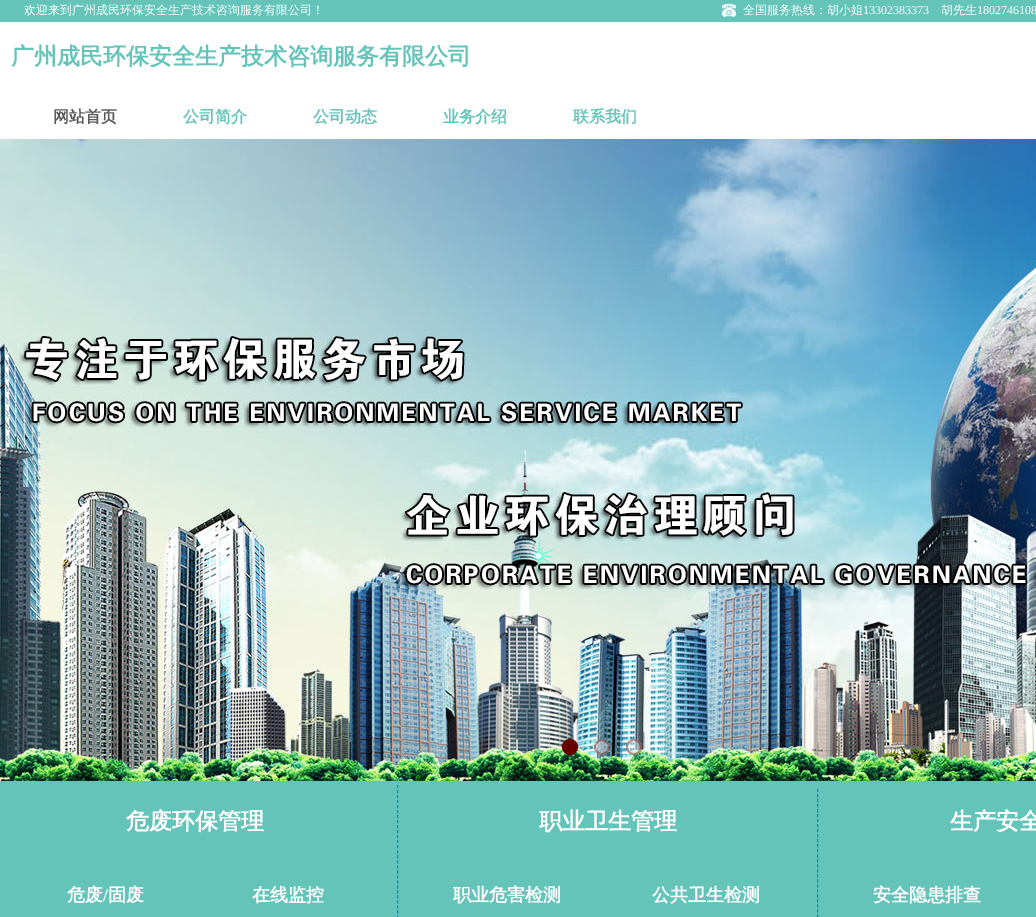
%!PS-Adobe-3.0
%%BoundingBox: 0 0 1036 917
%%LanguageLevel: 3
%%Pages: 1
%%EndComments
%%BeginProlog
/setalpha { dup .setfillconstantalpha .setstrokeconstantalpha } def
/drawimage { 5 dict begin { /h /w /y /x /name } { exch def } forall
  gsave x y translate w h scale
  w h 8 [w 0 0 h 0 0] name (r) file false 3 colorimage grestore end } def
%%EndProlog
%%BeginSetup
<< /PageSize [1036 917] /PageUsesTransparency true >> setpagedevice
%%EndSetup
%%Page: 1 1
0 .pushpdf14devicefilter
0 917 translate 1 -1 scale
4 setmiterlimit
1 setgray
0 0 1036 917 rectfill
0.392 0.769 0.725 setrgbcolor
0 0 1036 22 rectfill
(images/1.raw) 722 3 14 14 drawimage
(images/2.raw) 0 139 1036 642 drawimage
0.4 0 0 setrgbcolor
newpath 570 747 7 0 360 arc closepath gsave fill grestore
2 setlinewidth
stroke
0.4 setalpha
1 setgray
newpath 602 747 8 0 360 arc closepath fill
0.4 0 0 setrgbcolor
newpath 602 747 7 0 360 arc closepath stroke
1 setgray
newpath 634 747 8 0 360 arc closepath fill
0.4 0 0 setrgbcolor
newpath 634 747 7 0 360 arc closepath stroke
1 setalpha
0.392 0.769 0.725 setrgbcolor
0 781 1036 136 rectfill
0.008 0.545 0.812 setrgbcolor
1 setlinewidth
[3 2.02] 0 setdash
newpath 397.5 785 moveto 397.5 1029 lineto stroke
newpath 817.5 789 moveto 817.5 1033 lineto stroke
/WenQuanYiZenHei-Medium [12 0 0 -12 0 0] selectfont
1 setgray
24 14 moveto (欢迎来到广州成民环保安全生产技术咨询服务有限公司！) show
743 14 moveto (全国服务热线：胡小姐) show
/LiberationSerif-Regular [12 0 0 -12 0 0] selectfont
863 14 moveto (13302383373) show
/WenQuanYiZenHei-Medium [12 0 0 -12 0 0] selectfont
941 14 moveto (胡先生) show
/LiberationSerif-Regular [12 0 0 -12 0 0] selectfont
977 14 moveto (1802746108) show
/WenQuanYiZenHei-Bold [23 0 0 -23 0 0] selectfont
0.392 0.769 0.725 setrgbcolor
11 64 moveto (广州成民环保安全生产技术咨询服务有限公司) show
/WenQuanYiZenHei-Bold [16 0 0 -16 0 0] selectfont
0.353 setgray
53 122 moveto (网站首页) show
0.392 0.769 0.725 setrgbcolor
183 122 moveto (公司简介) show
313 122 moveto (公司动态) show
443 122 moveto (业务介绍) show
573 122 moveto (联系我们) show
/WenQuanYiZenHei-Bold [23 0 0 -23 0 0] selectfont
1 setgray
126 829 moveto (危废环保管理) show
539 829 moveto (职业卫生管理) show
950 829 moveto (生产安全) show
/WenQuanYiZenHei-Bold [18 0 0 -18 0 0] selectfont
67 901 moveto (危废) show
/LiberationSerif-Bold [18 0 0 -18 0 0] selectfont
103 901 moveto (/) show
/WenQuanYiZenHei-Bold [18 0 0 -18 0 0] selectfont
108 901 moveto (固废) show
252 901 moveto (在线监控) show
453 901 moveto (职业危害检测) show
652 901 moveto (公共卫生检测) show
873 901 moveto (安全隐患排查) show
.poppdf14devicefilter showpage
%%EOF
